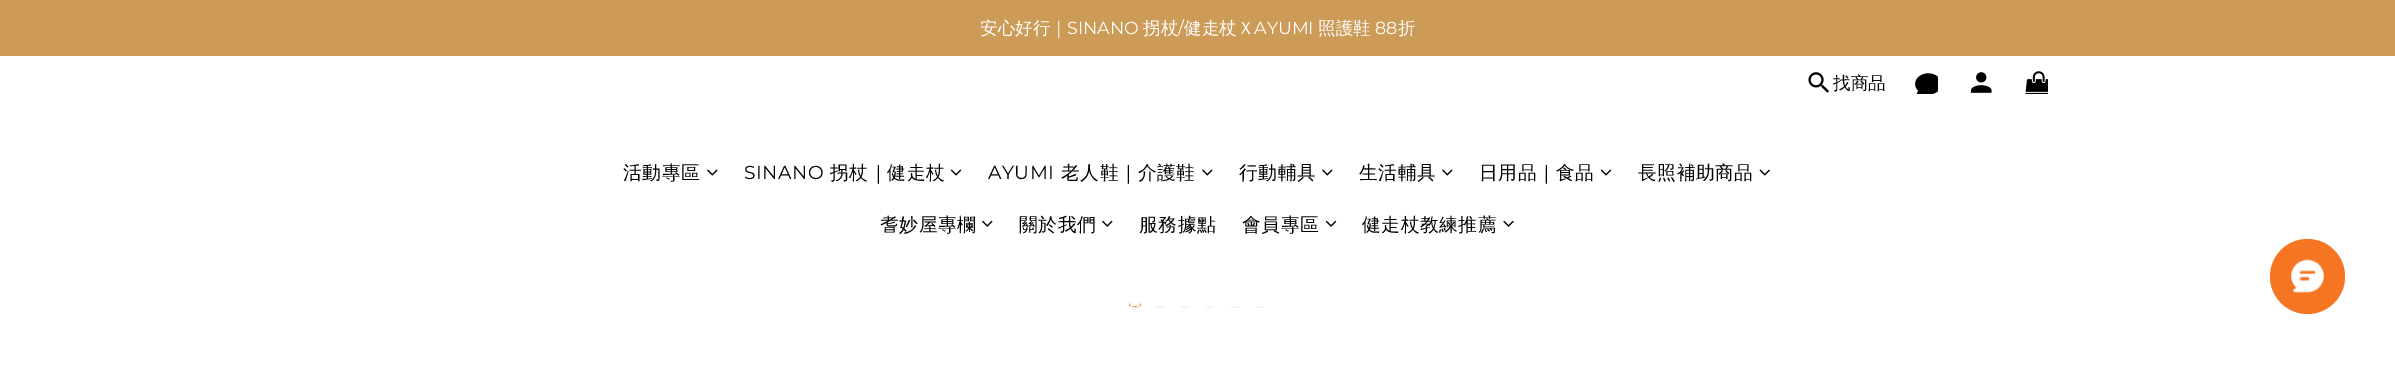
%!PS-Adobe-3.0
%%BoundingBox: 0 0 2395 383
%%LanguageLevel: 3
%%Pages: 1
%%EndComments
%%BeginProlog
/rrect { 5 dict begin { /r /h /w /y /x } { exch def } forall
  x r add y moveto x w add y 2 copy h add r arct x w add y h add x 1 index r arct
  x y h add x y r arct x y 2 copy exch w add exch r arct closepath end } def
/drawimage { 5 dict begin { /h /w /y /x /name } { exch def } forall
  gsave x y translate w h scale
  w h 8 [w 0 0 h 0 0] name (r) file false 3 colorimage grestore end } def
%%EndProlog
%%BeginSetup
<< /PageSize [2395 383] >> setpagedevice
%%EndSetup
%%Page: 1 1
0 383 translate 1 -1 scale
4 setmiterlimit
1 setgray
0 0 2395 383 rectfill
0.8 0.608 0.341 setrgbcolor
0 0 2395 56 rectfill
(images/1.raw) 1808 72 21 21 drawimage
(images/2.raw) 1915 73 23 21 drawimage
(images/3.raw) 1970 72 22 21 drawimage
(images/4.raw) 2025 71 23 23 drawimage
(images/5.raw) 707 169 11 7 drawimage
(images/6.raw) 950 169 12 7 drawimage
(images/5.raw) 1202 169 11 7 drawimage
(images/5.raw) 1322 169 11 7 drawimage
(images/5.raw) 1442 169 11 7 drawimage
(images/6.raw) 1600 169 12 7 drawimage
(images/7.raw) 1759 169 11 7 drawimage
(images/8.raw) 982 220 11 7 drawimage
(images/8.raw) 1102 220 11 7 drawimage
(images/9.raw) 1325 220 12 7 drawimage
(images/10.raw) 1503 220 11 7 drawimage
0.984 0.471 0.075 setrgbcolor
newpath 1129 306 moveto 1141 306 lineto 1141 302 lineto 1141 305.5 1138.5 308 1135 308 curveto 1131.5 308 1129 305.5 1129 302 curveto closepath fill
gsave
0 306 2395 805 rectclip
0.933 setgray
1129.5 295.5 11 12 5.5 rrect stroke
1154.5 295.5 11 12 5.5 rrect stroke
1179.5 295.5 11 12 5.5 rrect stroke
1204.5 295.5 11 12 5.5 rrect stroke
1229.5 295.5 11 12 5.5 rrect stroke
1254.5 295.5 11 12 5.5 rrect stroke
grestore
0.961 0.459 0.137 setrgbcolor
newpath 2307.5 276.5 37.5 0 360 arc closepath fill
(images/11.raw) 2291 259 33 34 drawimage
/WenQuanYiZenHei-Medium [17.5 0 0 -17.5 0 0] selectfont
1 setgray
980 34 moveto (安心好行｜) show
/Montserrat-Regular [17.5 0 0 -17.5 0 0] selectfont
1067 34 moveto (SINANO) show
/WenQuanYiZenHei-Medium [17.5 0 0 -17.5 0 0] selectfont
1143 34 moveto (拐杖) show
/Montserrat-Regular [17.5 0 0 -17.5 0 0] selectfont
1178 34 moveto (/) show
/WenQuanYiZenHei-Medium [17.5 0 0 -17.5 0 0] selectfont
1184 34 moveto (健走杖Ｘ) show
/Montserrat-Regular [17.5 0 0 -17.5 0 0] selectfont
1254 34 moveto (AYUMI) show
/WenQuanYiZenHei-Medium [17.5 0 0 -17.5 0 0] selectfont
1318 34 moveto (照護鞋) show
/Montserrat-Regular [17.5 0 0 -17.5 0 0] selectfont
1375 34 moveto (88) show
/WenQuanYiZenHei-Medium [17.5 0 0 -17.5 0 0] selectfont
1398 34 moveto (折) show
0 setgray
1833 89 moveto (找商品) show
/WenQuanYiZenHei-Medium [18.75 0 0 -18.75 0 0] selectfont
623 179 moveto 0.5 0 (活動專區) ashow
/Montserrat-Regular [18.75 0 0 -18.75 0 0] selectfont
744 179 moveto 0.5 0 (SINANO) ashow
/WenQuanYiZenHei-Medium [18.75 0 0 -18.75 0 0] selectfont
830 179 moveto 0.5 0 (拐杖｜健走杖) ashow
/Montserrat-Regular [18.75 0 0 -18.75 0 0] selectfont
988 179 moveto 0.5 0 (AYUMI) ashow
/WenQuanYiZenHei-Medium [18.75 0 0 -18.75 0 0] selectfont
1061 179 moveto 0.5 0 (老人鞋｜介護鞋) ashow
1239 179 moveto 0.5 0 (行動輔具) ashow
1359 179 moveto 0.5 0 (生活輔具) ashow
1479 179 moveto 0.5 0 (日用品｜食品) ashow
1638 179 moveto 0.5 0 (長照補助商品) ashow
880 231 moveto 0.5 0 (耆妙屋專欄) ashow
1019 231 moveto 0.5 0 (關於我們) ashow
1139 231 moveto 0.5 0 (服務據點) ashow
1242 231 moveto 0.5 0 (會員專區) ashow
1362 231 moveto 0.5 0 (健走杖教練推薦) ashow
showpage
%%EOF
